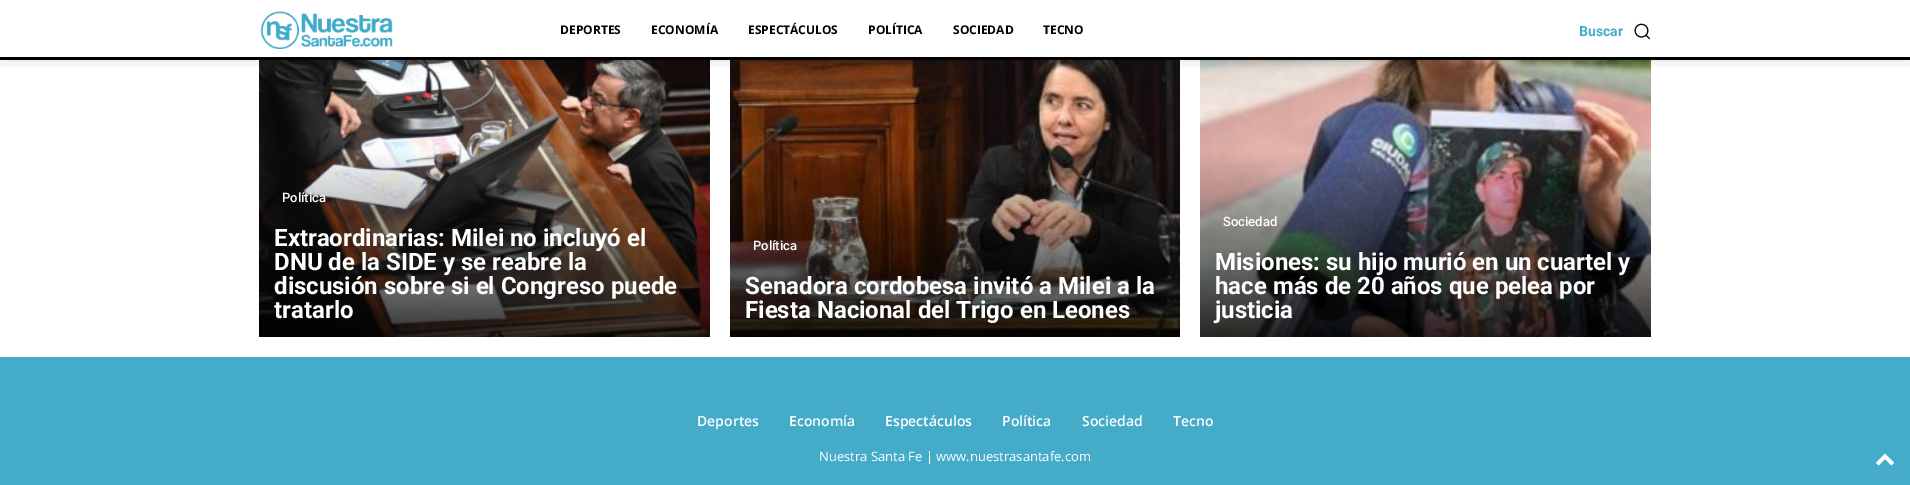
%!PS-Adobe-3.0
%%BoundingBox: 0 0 1910 485
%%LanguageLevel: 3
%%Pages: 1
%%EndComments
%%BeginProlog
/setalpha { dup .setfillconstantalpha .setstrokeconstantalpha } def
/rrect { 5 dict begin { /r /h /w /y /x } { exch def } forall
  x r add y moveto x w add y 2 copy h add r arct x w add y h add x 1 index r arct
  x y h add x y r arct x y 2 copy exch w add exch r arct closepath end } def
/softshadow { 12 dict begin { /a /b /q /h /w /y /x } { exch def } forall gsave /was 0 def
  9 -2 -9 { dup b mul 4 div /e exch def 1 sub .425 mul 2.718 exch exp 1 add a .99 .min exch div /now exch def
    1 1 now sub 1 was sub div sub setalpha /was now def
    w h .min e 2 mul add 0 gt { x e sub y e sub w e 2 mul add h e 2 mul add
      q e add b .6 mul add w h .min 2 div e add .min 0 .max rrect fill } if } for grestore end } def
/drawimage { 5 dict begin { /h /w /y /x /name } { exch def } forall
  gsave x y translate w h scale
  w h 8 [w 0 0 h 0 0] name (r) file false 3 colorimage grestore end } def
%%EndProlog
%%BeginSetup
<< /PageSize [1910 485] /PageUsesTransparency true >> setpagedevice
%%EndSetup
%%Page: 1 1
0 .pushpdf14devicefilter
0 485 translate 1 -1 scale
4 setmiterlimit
1 setgray
0 0 1910 485 rectfill
(images/1.raw) 260 11 133 38 drawimage
0 setgray
0 57 1910 3 rectfill
(images/3.raw) 259 60 451 277 drawimage
(images/4.raw) 730 60 450 277 drawimage
(images/5.raw) 1200 60 451 277 drawimage
gsave
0 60 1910 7 rectclip
0 0 1910 60 0 7.5 0.12 softshadow
grestore
(images/2.raw) 1634 23 17 17 drawimage
0.267 0.671 0.784 setrgbcolor
0 357 1910 128 rectfill
(images/6.raw) 1876 453 18 13 drawimage
/OpenSans-Bold [12 0 0 -12 0 0] selectfont
0 setgray
560 34 moveto (DEPORTES) show
651 34 moveto (ECONOMÍA) show
748 34 moveto (ESPECTÁCULOS) show
868 34 moveto (POLÍTICA) show
953 34 moveto (SOCIEDAD) show
1043 34 moveto (TECNO) show
/Roboto-Bold [14 0 0 -14 0 0] selectfont
0.267 0.671 0.784 setrgbcolor
1579 36 moveto (Buscar) show
/Roboto-Medium [13 0 0 -13 0 0] selectfont
1 setgray
282 202 moveto (Política) show
/Roboto-Bold [24 0 0 -24 0 0] selectfont
274 246 moveto (Extraordinarias: Milei no incluyó el) show
274 270 moveto (DNU de la SIDE y se reabre la) show
274 294 moveto (discusión sobre si el Congreso puede) show
274 318 moveto (tratarlo) show
/Roboto-Medium [13 0 0 -13 0 0] selectfont
753 250 moveto (Política) show
/Roboto-Bold [24 0 0 -24 0 0] selectfont
745 294 moveto (Senadora cordobesa invitó a Milei a la) show
745 318 moveto (Fiesta Nacional del Trigo en Leones) show
/Roboto-Medium [13 0 0 -13 0 0] selectfont
1223 226 moveto (Sociedad) show
/Roboto-Bold [24 0 0 -24 0 0] selectfont
1215 270 moveto (Misiones: su hijo murió en un cuartel y) show
1215 294 moveto (hace más de 20 años que pelea por) show
1215 318 moveto (justicia) show
/OpenSans-SemiBold [14 0 0 -14 0 0] selectfont
697 426 moveto (Deportes) show
789 426 moveto (Economía) show
885 426 moveto (Espectáculos) show
1002 426 moveto (Política) show
1082 426 moveto (Sociedad) show
1173 426 moveto (Tecno) show
/OpenSans-Regular [13 0 0 -13 0 0] selectfont
819 461 moveto (Nuestra Santa Fe | www.nuestrasantafe.com) show
.poppdf14devicefilter showpage
%%EOF
